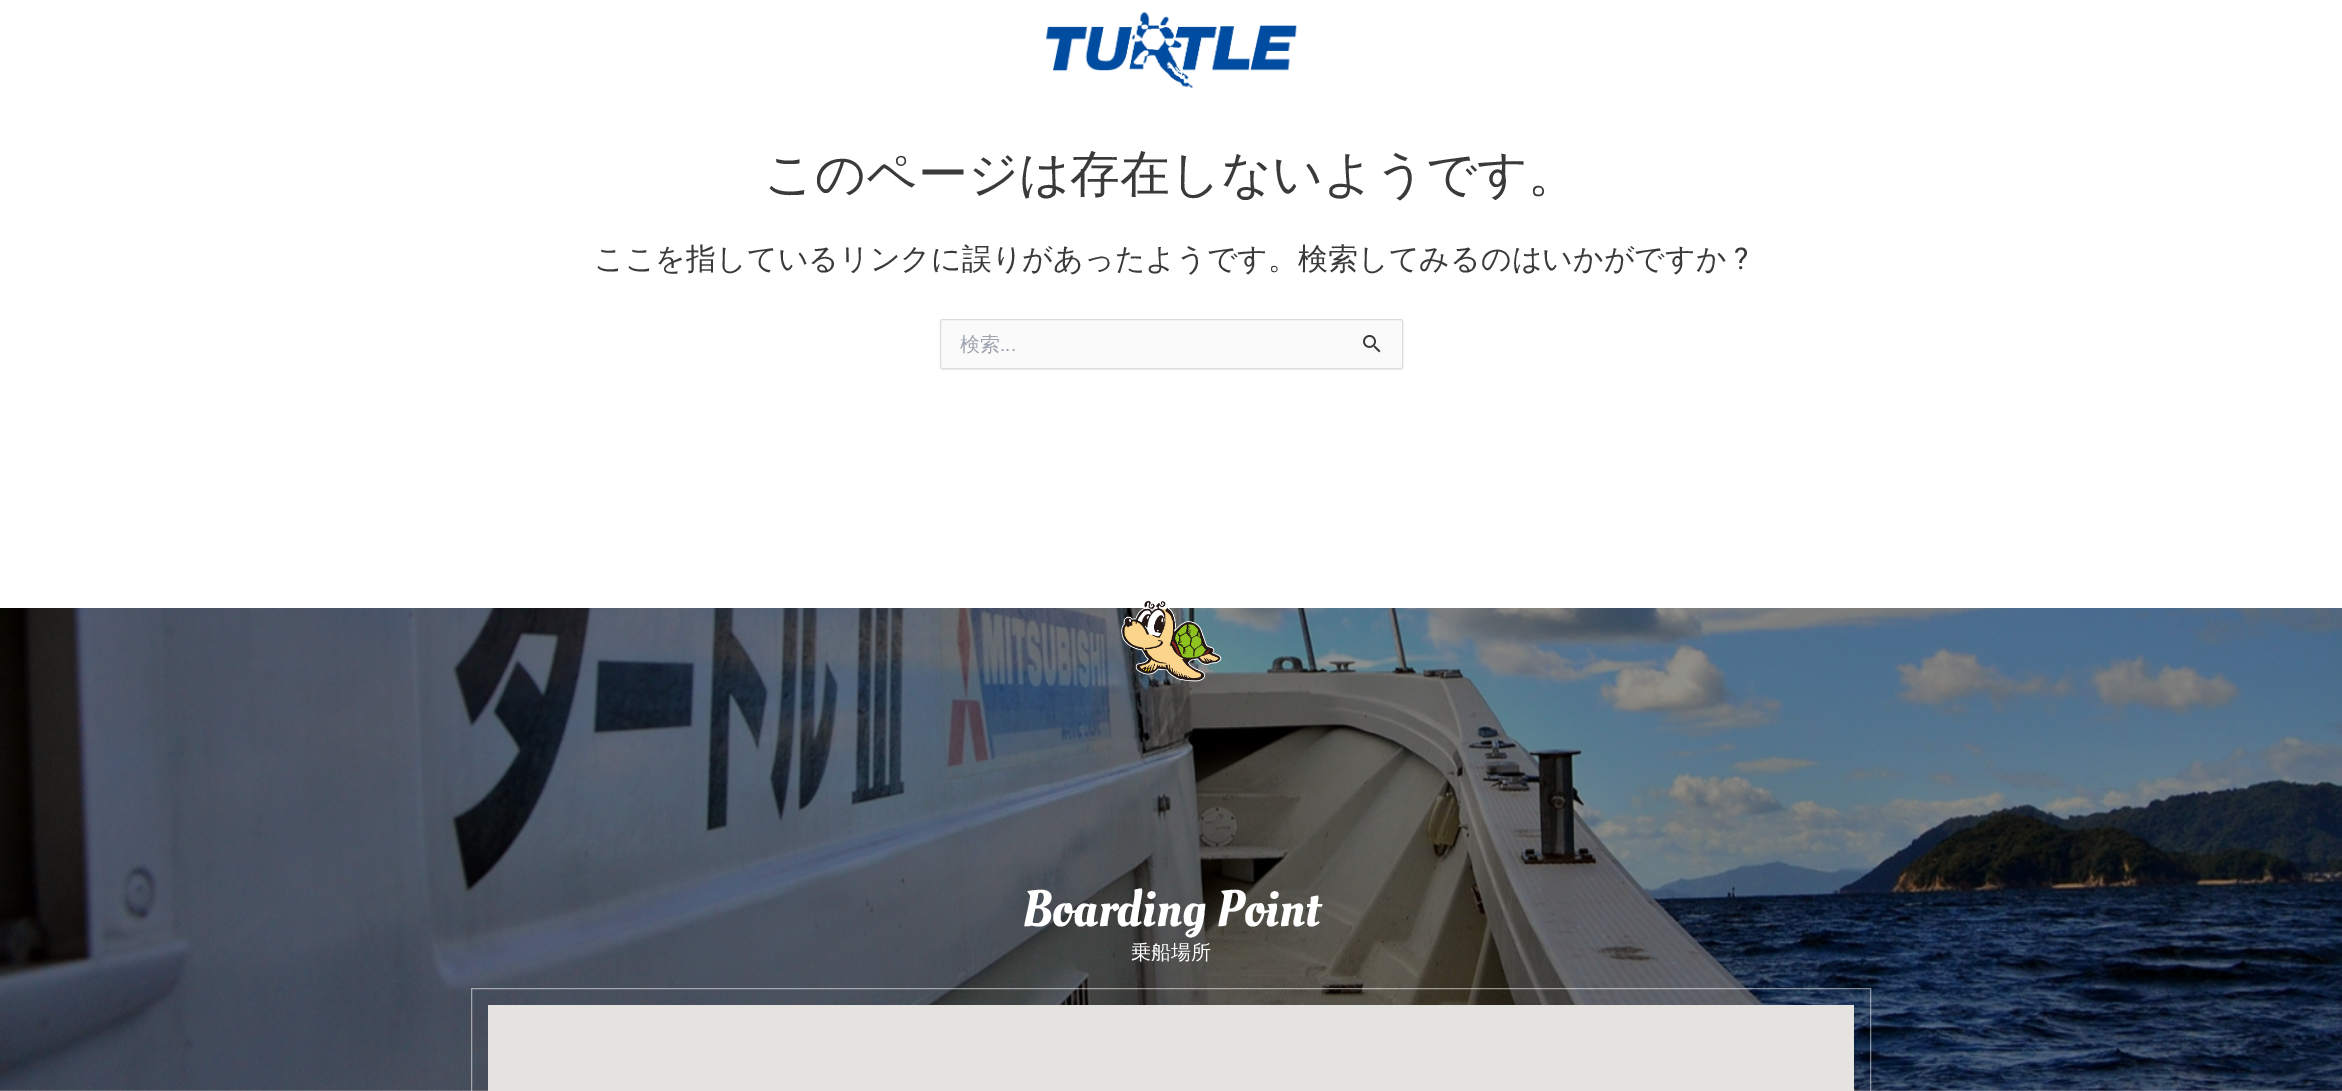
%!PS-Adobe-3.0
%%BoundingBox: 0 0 2342 1091
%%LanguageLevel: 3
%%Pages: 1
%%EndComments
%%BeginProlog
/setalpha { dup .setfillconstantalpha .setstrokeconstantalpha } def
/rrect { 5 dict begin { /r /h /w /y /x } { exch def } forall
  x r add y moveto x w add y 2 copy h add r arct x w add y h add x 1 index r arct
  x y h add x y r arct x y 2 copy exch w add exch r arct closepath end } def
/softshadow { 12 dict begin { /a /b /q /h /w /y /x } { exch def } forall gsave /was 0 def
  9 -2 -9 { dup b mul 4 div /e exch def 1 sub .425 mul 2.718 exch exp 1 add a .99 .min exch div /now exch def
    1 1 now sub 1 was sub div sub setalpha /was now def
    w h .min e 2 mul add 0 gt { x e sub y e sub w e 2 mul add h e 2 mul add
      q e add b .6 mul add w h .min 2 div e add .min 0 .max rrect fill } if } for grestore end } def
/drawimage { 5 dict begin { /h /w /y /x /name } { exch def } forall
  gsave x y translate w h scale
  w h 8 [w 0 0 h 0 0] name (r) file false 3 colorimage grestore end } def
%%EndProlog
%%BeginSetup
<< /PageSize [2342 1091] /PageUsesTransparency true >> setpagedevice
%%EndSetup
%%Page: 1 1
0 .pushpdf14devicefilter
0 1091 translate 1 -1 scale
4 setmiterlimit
1 setgray
0 0 2342 1091 rectfill
(images/1.raw) 1046 12 251 76 drawimage
0 setgray
940 320 463 50 2.5 1 0.05 softshadow
0.98 setgray
940.5 319.5 462 49 2 rrect gsave fill grestore
0.867 setgray
stroke
(images/2.raw) 1363 335 18 18 drawimage
(images/4.raw) 0 608 2342 483 drawimage
(images/3.raw) 1121 601 101 81 drawimage
0.5 setalpha
1 setgray
471.5 988.5 1399 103 rectstroke
1 setalpha
0.898 0.89 0.875 setrgbcolor
488 1005 1366 86 rectfill
/WenQuanYiZenHei-Medium [50 0 0 -50 0 0] selectfont
0.227 setgray
764 191 moveto (このページは存在しないようです。) show
/WenQuanYiZenHei-Medium [30 0 0 -30 0 0] selectfont
594 269 moveto (ここを指しているリンクに誤りがあったようです。検索してみるのはいかがですか) show
/Roboto-Regular [30 0 0 -30 0 0] selectfont
1734 269 moveto (?) show
/WenQuanYiZenHei-Medium [20 0 0 -20 0 0] selectfont
0.612 0.639 0.686 setrgbcolor
960 351 moveto (検索) show
/Roboto-Regular [20 0 0 -20 0 0] selectfont
1000 351 moveto (...) show
/OleoScript-Regular [51.25 0 0 -51.25 0 0] selectfont
1 setgray
1022 926 moveto (Boarding Point) show
/WenQuanYiZenHei-Medium [20 0 0 -20 0 0] selectfont
1131 959 moveto (乗船場所) show
.poppdf14devicefilter showpage
%%EOF
